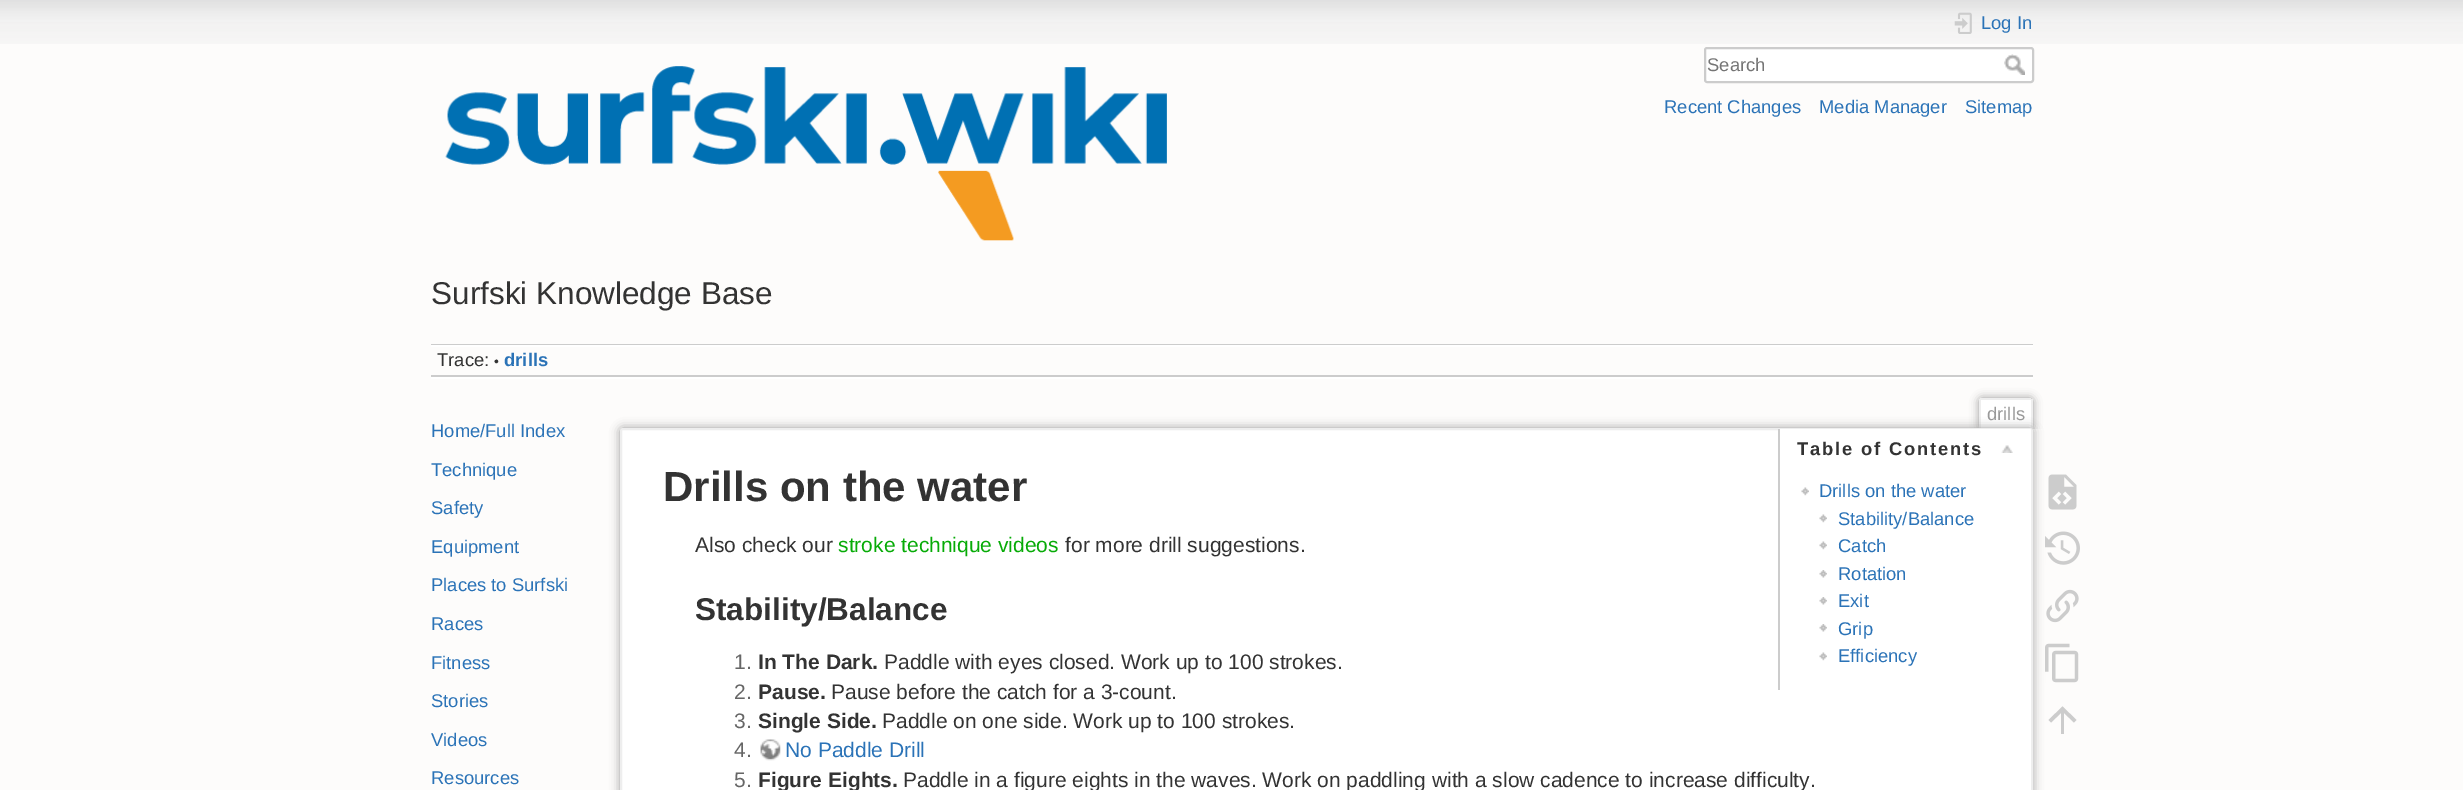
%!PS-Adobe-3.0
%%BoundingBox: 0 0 2463 790
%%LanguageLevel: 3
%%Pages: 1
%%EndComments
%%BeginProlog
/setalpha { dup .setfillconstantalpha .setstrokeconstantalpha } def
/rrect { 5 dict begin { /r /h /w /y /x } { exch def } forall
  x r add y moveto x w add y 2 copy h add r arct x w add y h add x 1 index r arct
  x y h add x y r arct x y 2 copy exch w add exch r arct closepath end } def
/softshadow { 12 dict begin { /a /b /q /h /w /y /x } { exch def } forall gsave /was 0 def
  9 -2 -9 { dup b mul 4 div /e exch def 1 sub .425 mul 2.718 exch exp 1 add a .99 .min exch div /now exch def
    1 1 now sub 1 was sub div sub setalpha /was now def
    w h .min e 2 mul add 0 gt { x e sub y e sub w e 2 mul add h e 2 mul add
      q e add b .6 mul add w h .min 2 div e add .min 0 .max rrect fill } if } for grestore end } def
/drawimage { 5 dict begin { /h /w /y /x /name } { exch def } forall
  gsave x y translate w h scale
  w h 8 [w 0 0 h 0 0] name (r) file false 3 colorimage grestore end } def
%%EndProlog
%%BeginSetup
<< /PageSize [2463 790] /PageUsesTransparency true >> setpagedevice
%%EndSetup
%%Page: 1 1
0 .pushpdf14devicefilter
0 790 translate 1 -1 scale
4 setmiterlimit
0.992 0.988 0.984 setrgbcolor
0 0 2463 790 rectfill
(images/1.raw) 0 0 2463 44 drawimage
(images/2.raw) 1954 12 18 22 drawimage
1 setgray
1705 48 328 34 2 rrect gsave fill grestore
0.8 setgray
2 setlinewidth
stroke
(images/3.raw) 2004 54 21 21 drawimage
(images/4.raw) 445 66 722 175 drawimage
431 344 1602 1 rectfill
1 setgray
431 377 1602 2 rectfill
431 345 1602 2 rectfill
0.8 setgray
431 375 1602 2 rectfill
gsave
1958 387 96 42 rectclip
0.6 setgray
1979 398 54 31 3 4.5 1 softshadow
grestore
1 setgray
1981 400 50 29 rectfill
0.933 setgray
1980 398 51 2 rectfill
2031 399 2 30 rectfill
1979 399 2 30 rectfill
0.6 setgray
620 428 1413 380 3 5 1 softshadow
1 setgray
621 429 1411 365 2 rrect gsave fill grestore
0.933 setgray
stroke
1 setgray
newpath 1778 429 moveto 2029.5 429 lineto 2030.5 429 2031 429.5 2031 430.5 curveto 2031 690 lineto 1778 690 lineto closepath fill
0.8 setgray
1778 429 2 261 rectfill
(images/5.raw) 2001 445 12 8 drawimage
(images/6.raw) 1801 487 8 9 drawimage
(images/7.raw) 1819 514 8 9 drawimage
(images/7.raw) 1819 541 8 9 drawimage
(images/8.raw) 1819 570 8 8 drawimage
(images/8.raw) 1819 597 8 8 drawimage
(images/8.raw) 1819 624 8 8 drawimage
(images/7.raw) 1819 652 8 9 drawimage
(images/9.raw) 760 739 21 22 drawimage
(images/10.raw) 2048 474 29 36 drawimage
(images/11.raw) 2045 531 35 34 drawimage
(images/12.raw) 2046 589 33 34 drawimage
(images/13.raw) 2045 643 34 40 drawimage
newpath 2064 734 moveto 2061 734 lineto 2061 713 lineto 2051 722.5 lineto 2048.5 720 lineto 2062.5 706.5 lineto 2076.5 720 lineto 2074 722.5 lineto 2064 713 lineto closepath fill
/LiberationSans-Regular [18.4 0 0 -18.4 0 0] selectfont
0.169 0.451 0.718 setrgbcolor
1981 29 moveto (Log In) show
0.459 setgray
1707 71 moveto (Search) show
0.169 0.451 0.718 setrgbcolor
1664 113 moveto (Recent Changes) show
1819 113 moveto (Media Manager) show
1965 113 moveto (Sitemap) show
/LiberationSans-Regular [31.5 0 0 -31.5 0 0] selectfont
0.2 setgray
431 304 moveto (Surfski Knowledge Base) show
/LiberationSans-Regular [18.4 0 0 -18.4 0 0] selectfont
437 366 moveto (Trace:) show
/LiberationSans-Regular [14 0 0 -14 0 0] selectfont
494 366 moveto (•) show
/LiberationSans-Bold [18.4 0 0 -18.4 0 0] selectfont
0.169 0.451 0.718 setrgbcolor
504 366 moveto (drills) show
/LiberationSans-Regular [18.4 0 0 -18.4 0 0] selectfont
431 437 moveto (Home/Full Index) show
431 476 moveto (Technique) show
431 514 moveto (Safety) show
431 553 moveto (Equipment) show
431 591 moveto (Places to Surfski) show
431 630 moveto (Races) show
431 669 moveto (Fitness) show
431 707 moveto (Stories) show
431 746 moveto (Videos) show
431 784 moveto (Resources) show
0.6 setgray
1987 420 moveto (drills) show
/LiberationSans-Bold [42 0 0 -42 0 0] selectfont
0.2 setgray
663 501 moveto (Drills on the water) show
/LiberationSans-Bold [18.4 0 0 -18.4 0 0] selectfont
1797 455 moveto 1.8 0 (Table of Contents) ashow
/LiberationSans-Regular [18.4 0 0 -18.4 0 0] selectfont
0.169 0.451 0.718 setrgbcolor
1819 497 moveto (Drills on the water) show
1838 525 moveto (Stability/Balance) show
1838 552 moveto (Catch) show
1838 580 moveto (Rotation) show
1838 607 moveto (Exit) show
1838 635 moveto (Grip) show
1838 662 moveto (Efficiency) show
/LiberationSans-Regular [21 0 0 -21 0 0] selectfont
0.2 setgray
695 552 moveto (Also check our) show
0.027 0.671 0.027 setrgbcolor
838 552 moveto (stroke technique videos) show
0.2 setgray
1065 552 moveto (for more drill suggestions.) show
/LiberationSans-Bold [31.5 0 0 -31.5 0 0] selectfont
695 620 moveto (Stability/Balance) show
/LiberationSans-Regular [21 0 0 -21 0 0] selectfont
0.4 setgray
734 669 moveto (1.) show
/LiberationSans-Bold [21 0 0 -21 0 0] selectfont
0.2 setgray
758 669 moveto (In The Dark.) show
/LiberationSans-Regular [21 0 0 -21 0 0] selectfont
884 669 moveto (Paddle with eyes closed. Work up to 100 strokes.) show
0.4 setgray
734 699 moveto (2.) show
/LiberationSans-Bold [21 0 0 -21 0 0] selectfont
0.2 setgray
758 699 moveto (Pause.) show
/LiberationSans-Regular [21 0 0 -21 0 0] selectfont
831 699 moveto (Pause before the catch for a 3-count.) show
0.4 setgray
734 728 moveto (3.) show
/LiberationSans-Bold [21 0 0 -21 0 0] selectfont
0.2 setgray
758 728 moveto (Single Side.) show
/LiberationSans-Regular [21 0 0 -21 0 0] selectfont
882 728 moveto (Paddle on one side. Work up to 100 strokes.) show
0.4 setgray
734 757 moveto (4.) show
0.169 0.451 0.718 setrgbcolor
785 757 moveto (No Paddle Drill) show
0.4 setgray
734 787 moveto (5.) show
/LiberationSans-Bold [21 0 0 -21 0 0] selectfont
0.2 setgray
758 787 moveto (Figure Eights.) show
/LiberationSans-Regular [21 0 0 -21 0 0] selectfont
903 787 moveto (Paddle in a figure eights in the waves. Work on paddling with a slow cadence to increase difficulty.) show
.poppdf14devicefilter showpage
%%EOF
